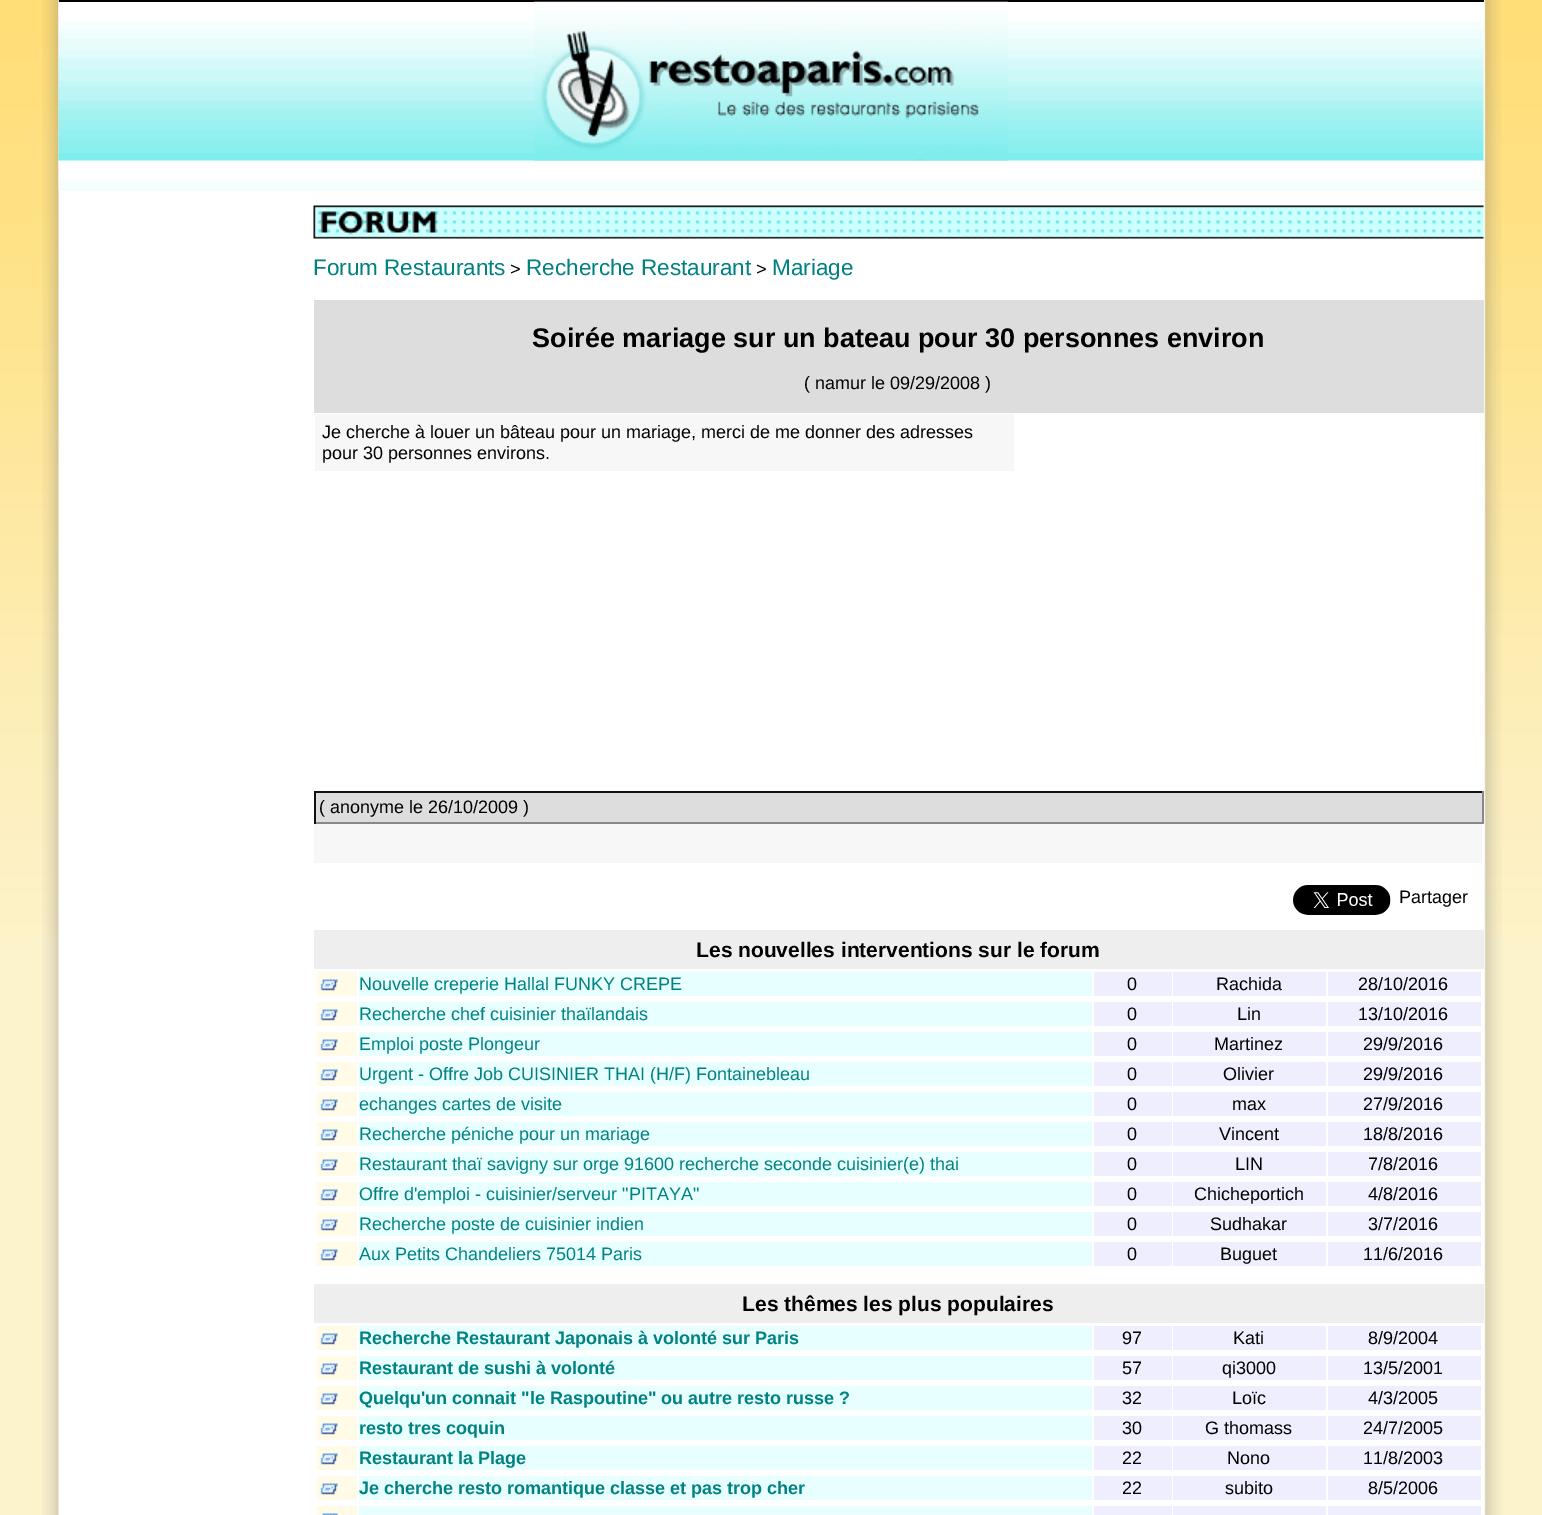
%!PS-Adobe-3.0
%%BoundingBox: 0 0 1542 1515
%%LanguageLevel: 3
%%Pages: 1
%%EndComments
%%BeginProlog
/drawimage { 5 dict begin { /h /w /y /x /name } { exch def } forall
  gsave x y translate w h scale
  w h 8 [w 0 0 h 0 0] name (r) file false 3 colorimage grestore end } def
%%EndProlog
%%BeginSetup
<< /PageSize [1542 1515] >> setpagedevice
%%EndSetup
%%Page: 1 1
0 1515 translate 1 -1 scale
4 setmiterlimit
0.988 0.953 0.804 setrgbcolor
0 0 1542 1515 rectfill
(images/1.raw) 0 0 1542 936 drawimage
(images/2.raw) 42 0 1460 1515 drawimage
(images/3.raw) 58 0 1426 191 drawimage
0 setgray
59 0 1425 2 rectfill
(images/4.raw) 534 1 474 160 drawimage
(images/5.raw) 313 205 1171 34 drawimage
0.867 setgray
314 300 1170 113 rectfill
0.969 setgray
315 414 699 57 rectfill
0.867 setgray
316 793 1166 29 rectfill
0.067 setgray
314 791 1170 2 rectfill
0.533 setgray
1482 791 2 33 rectfill
314 822 1170 2 rectfill
0.067 setgray
314 791 2 33 rectfill
0.969 setgray
314 824 1168 39 rectfill
(images/6.raw) 1293 885 98 30 drawimage
0.933 setgray
314 930 1170 39 rectfill
1 0.984 0.906 setrgbcolor
317 972 40 24 rectfill
(images/7.raw) 320 979 18 12 drawimage
0.906 1 1 setrgbcolor
359 972 733 24 rectfill
0.933 0.933 1 setrgbcolor
1094 972 78 24 rectfill
1173 972 153 24 rectfill
1328 972 153 24 rectfill
1 0.984 0.906 setrgbcolor
317 1002 40 24 rectfill
(images/7.raw) 320 1009 18 12 drawimage
0.906 1 1 setrgbcolor
359 1002 733 24 rectfill
0.933 0.933 1 setrgbcolor
1094 1002 78 24 rectfill
1173 1002 153 24 rectfill
1328 1002 153 24 rectfill
1 0.984 0.906 setrgbcolor
317 1032 40 24 rectfill
(images/7.raw) 320 1039 18 12 drawimage
0.906 1 1 setrgbcolor
359 1032 733 24 rectfill
0.933 0.933 1 setrgbcolor
1094 1032 78 24 rectfill
1173 1032 153 24 rectfill
1328 1032 153 24 rectfill
1 0.984 0.906 setrgbcolor
317 1062 40 24 rectfill
(images/7.raw) 320 1069 18 12 drawimage
0.906 1 1 setrgbcolor
359 1062 733 24 rectfill
0.933 0.933 1 setrgbcolor
1094 1062 78 24 rectfill
1173 1062 153 24 rectfill
1328 1062 153 24 rectfill
1 0.984 0.906 setrgbcolor
317 1092 40 24 rectfill
(images/7.raw) 320 1099 18 12 drawimage
0.906 1 1 setrgbcolor
359 1092 733 24 rectfill
0.933 0.933 1 setrgbcolor
1094 1092 78 24 rectfill
1173 1092 153 24 rectfill
1328 1092 153 24 rectfill
1 0.984 0.906 setrgbcolor
317 1122 40 24 rectfill
(images/7.raw) 320 1129 18 12 drawimage
0.906 1 1 setrgbcolor
359 1122 733 24 rectfill
0.933 0.933 1 setrgbcolor
1094 1122 78 24 rectfill
1173 1122 153 24 rectfill
1328 1122 153 24 rectfill
1 0.984 0.906 setrgbcolor
317 1152 40 24 rectfill
(images/7.raw) 320 1159 18 12 drawimage
0.906 1 1 setrgbcolor
359 1152 733 24 rectfill
0.933 0.933 1 setrgbcolor
1094 1152 78 24 rectfill
1173 1152 153 24 rectfill
1328 1152 153 24 rectfill
1 0.984 0.906 setrgbcolor
317 1182 40 24 rectfill
(images/7.raw) 320 1189 18 12 drawimage
0.906 1 1 setrgbcolor
359 1182 733 24 rectfill
0.933 0.933 1 setrgbcolor
1094 1182 78 24 rectfill
1173 1182 153 24 rectfill
1328 1182 153 24 rectfill
1 0.984 0.906 setrgbcolor
317 1212 40 24 rectfill
(images/7.raw) 320 1219 18 12 drawimage
0.906 1 1 setrgbcolor
359 1212 733 24 rectfill
0.933 0.933 1 setrgbcolor
1094 1212 78 24 rectfill
1173 1212 153 24 rectfill
1328 1212 153 24 rectfill
1 0.984 0.906 setrgbcolor
317 1242 40 24 rectfill
(images/7.raw) 320 1249 18 12 drawimage
0.906 1 1 setrgbcolor
359 1242 733 24 rectfill
0.933 0.933 1 setrgbcolor
1094 1242 78 24 rectfill
1173 1242 153 24 rectfill
1328 1242 153 24 rectfill
0.933 setgray
314 1284 1170 39 rectfill
1 0.984 0.906 setrgbcolor
317 1326 40 24 rectfill
(images/7.raw) 320 1333 18 12 drawimage
0.906 1 1 setrgbcolor
359 1326 733 24 rectfill
0.933 0.933 1 setrgbcolor
1094 1326 78 24 rectfill
1173 1326 153 24 rectfill
1328 1326 153 24 rectfill
1 0.984 0.906 setrgbcolor
317 1356 40 24 rectfill
(images/7.raw) 320 1363 18 12 drawimage
0.906 1 1 setrgbcolor
359 1356 733 24 rectfill
0.933 0.933 1 setrgbcolor
1094 1356 78 24 rectfill
1173 1356 153 24 rectfill
1328 1356 153 24 rectfill
1 0.984 0.906 setrgbcolor
317 1386 40 24 rectfill
(images/7.raw) 320 1393 18 12 drawimage
0.906 1 1 setrgbcolor
359 1386 733 24 rectfill
0.933 0.933 1 setrgbcolor
1094 1386 78 24 rectfill
1173 1386 153 24 rectfill
1328 1386 153 24 rectfill
1 0.984 0.906 setrgbcolor
317 1416 40 24 rectfill
(images/7.raw) 320 1423 18 12 drawimage
0.906 1 1 setrgbcolor
359 1416 733 24 rectfill
0.933 0.933 1 setrgbcolor
1094 1416 78 24 rectfill
1173 1416 153 24 rectfill
1328 1416 153 24 rectfill
1 0.984 0.906 setrgbcolor
317 1446 40 24 rectfill
(images/7.raw) 320 1453 18 12 drawimage
0.906 1 1 setrgbcolor
359 1446 733 24 rectfill
0.933 0.933 1 setrgbcolor
1094 1446 78 24 rectfill
1173 1446 153 24 rectfill
1328 1446 153 24 rectfill
1 0.984 0.906 setrgbcolor
317 1476 40 24 rectfill
(images/7.raw) 320 1483 18 12 drawimage
0.906 1 1 setrgbcolor
359 1476 733 24 rectfill
0.933 0.933 1 setrgbcolor
1094 1476 78 24 rectfill
1173 1476 153 24 rectfill
1328 1476 153 24 rectfill
1 0.984 0.906 setrgbcolor
317 1506 40 9 rectfill
(images/8.raw) 322 1513 16 2 drawimage
0.906 1 1 setrgbcolor
359 1506 733 9 rectfill
0.933 0.933 1 setrgbcolor
1094 1506 78 9 rectfill
1173 1506 153 9 rectfill
1328 1506 153 9 rectfill
/LiberationSans-Regular [22.5 0 0 -22.5 0 0] selectfont
0 0.506 0.51 setrgbcolor
313 275 moveto (Forum Restaurants) show
/LiberationSans-Regular [18 0 0 -18 0 0] selectfont
0 setgray
510 275 moveto (>) show
/LiberationSans-Regular [22.5 0 0 -22.5 0 0] selectfont
0 0.506 0.51 setrgbcolor
526 275 moveto (Recherche Restaurant) show
/LiberationSans-Regular [18 0 0 -18 0 0] selectfont
0 setgray
756 275 moveto (>) show
/LiberationSans-Regular [22.5 0 0 -22.5 0 0] selectfont
0 0.506 0.51 setrgbcolor
772 275 moveto (Mariage) show
/LiberationSans-Bold [27 0 0 -27 0 0] selectfont
0 setgray
532 347 moveto (Soirée mariage sur un bateau pour 30 personnes environ) show
/LiberationSans-Regular [18 0 0 -18 0 0] selectfont
804 389 moveto (\( namur le 09/29/2008 \)) show
322 438 moveto (Je cherche à louer un bâteau pour un mariage, merci de me donner des adresses) show
322 459 moveto (pour 30 personnes environs.) show
319 813 moveto (\( anonyme le 26/10/2009 \)) show
1399 903 moveto (Partager) show
/LiberationSans-Bold [21 0 0 -21 0 0] selectfont
696 957 moveto (Les nouvelles interventions sur le forum) show
/LiberationSans-Regular [18 0 0 -18 0 0] selectfont
0 0.506 0.51 setrgbcolor
359 990 moveto (Nouvelle creperie Hallal FUNKY CREPE) show
0 setgray
1127 990 moveto (0) show
1216 990 moveto (Rachida) show
1358 990 moveto (28/10/2016) show
0 0.506 0.51 setrgbcolor
359 1020 moveto (Recherche chef cuisinier thaïlandais) show
0 setgray
1127 1020 moveto (0) show
1237 1020 moveto (Lin) show
1358 1020 moveto (13/10/2016) show
0 0.506 0.51 setrgbcolor
359 1050 moveto (Emploi poste Plongeur) show
0 setgray
1127 1050 moveto (0) show
1214 1050 moveto (Martinez) show
1363 1050 moveto (29/9/2016) show
0 0.506 0.51 setrgbcolor
359 1080 moveto (Urgent - Offre Job CUISINIER THAI \(H/F\) Fontainebleau) show
0 setgray
1127 1080 moveto (0) show
1223 1080 moveto (Olivier) show
1363 1080 moveto (29/9/2016) show
0 0.506 0.51 setrgbcolor
359 1110 moveto (echanges cartes de visite) show
0 setgray
1127 1110 moveto (0) show
1232 1110 moveto (max) show
1363 1110 moveto (27/9/2016) show
0 0.506 0.51 setrgbcolor
359 1140 moveto (Recherche péniche pour un mariage) show
0 setgray
1127 1140 moveto (0) show
1219 1140 moveto (Vincent) show
1363 1140 moveto (18/8/2016) show
0 0.506 0.51 setrgbcolor
359 1170 moveto (Restaurant thaï savigny sur orge 91600 recherche seconde cuisinier\(e\) thai) show
0 setgray
1127 1170 moveto (0) show
1235 1170 moveto (LIN) show
1368 1170 moveto (7/8/2016) show
0 0.506 0.51 setrgbcolor
359 1200 moveto (Offre d'emploi - cuisinier/serveur "PITAYA") show
0 setgray
1127 1200 moveto (0) show
1194 1200 moveto (Chicheportich) show
1368 1200 moveto (4/8/2016) show
0 0.506 0.51 setrgbcolor
359 1230 moveto (Recherche poste de cuisinier indien) show
0 setgray
1127 1230 moveto (0) show
1210 1230 moveto (Sudhakar) show
1368 1230 moveto (3/7/2016) show
0 0.506 0.51 setrgbcolor
359 1260 moveto (Aux Petits Chandeliers 75014 Paris) show
0 setgray
1127 1260 moveto (0) show
1220 1260 moveto (Buguet) show
1363 1260 moveto (11/6/2016) show
/LiberationSans-Bold [21 0 0 -21 0 0] selectfont
742 1311 moveto (Les thêmes les plus populaires) show
/LiberationSans-Bold [18 0 0 -18 0 0] selectfont
0 0.506 0.51 setrgbcolor
359 1344 moveto (Recherche Restaurant Japonais à volonté sur Paris) show
/LiberationSans-Regular [18 0 0 -18 0 0] selectfont
0 setgray
1122 1344 moveto (97) show
1233 1344 moveto (Kati) show
1368 1344 moveto (8/9/2004) show
/LiberationSans-Bold [18 0 0 -18 0 0] selectfont
0 0.506 0.51 setrgbcolor
359 1374 moveto (Restaurant de sushi à volonté) show
/LiberationSans-Regular [18 0 0 -18 0 0] selectfont
0 setgray
1122 1374 moveto (57) show
1222 1374 moveto (qi3000) show
1363 1374 moveto (13/5/2001) show
/LiberationSans-Bold [18 0 0 -18 0 0] selectfont
0 0.506 0.51 setrgbcolor
359 1404 moveto (Quelqu'un connait "le Raspoutine" ou autre resto russe ?) show
/LiberationSans-Regular [18 0 0 -18 0 0] selectfont
0 setgray
1122 1404 moveto (32) show
1232 1404 moveto (Loïc) show
1368 1404 moveto (4/3/2005) show
/LiberationSans-Bold [18 0 0 -18 0 0] selectfont
0 0.506 0.51 setrgbcolor
359 1434 moveto (resto tres coquin) show
/LiberationSans-Regular [18 0 0 -18 0 0] selectfont
0 setgray
1122 1434 moveto (30) show
1205 1434 moveto (G thomass) show
1363 1434 moveto (24/7/2005) show
/LiberationSans-Bold [18 0 0 -18 0 0] selectfont
0 0.506 0.51 setrgbcolor
359 1464 moveto (Restaurant la Plage) show
/LiberationSans-Regular [18 0 0 -18 0 0] selectfont
0 setgray
1122 1464 moveto (22) show
1227 1464 moveto (Nono) show
1363 1464 moveto (11/8/2003) show
/LiberationSans-Bold [18 0 0 -18 0 0] selectfont
0 0.506 0.51 setrgbcolor
359 1494 moveto (Je cherche resto romantique classe et pas trop cher) show
/LiberationSans-Regular [18 0 0 -18 0 0] selectfont
0 setgray
1122 1494 moveto (22) show
1225 1494 moveto (subito) show
1368 1494 moveto (8/5/2006) show
showpage
%%EOF
